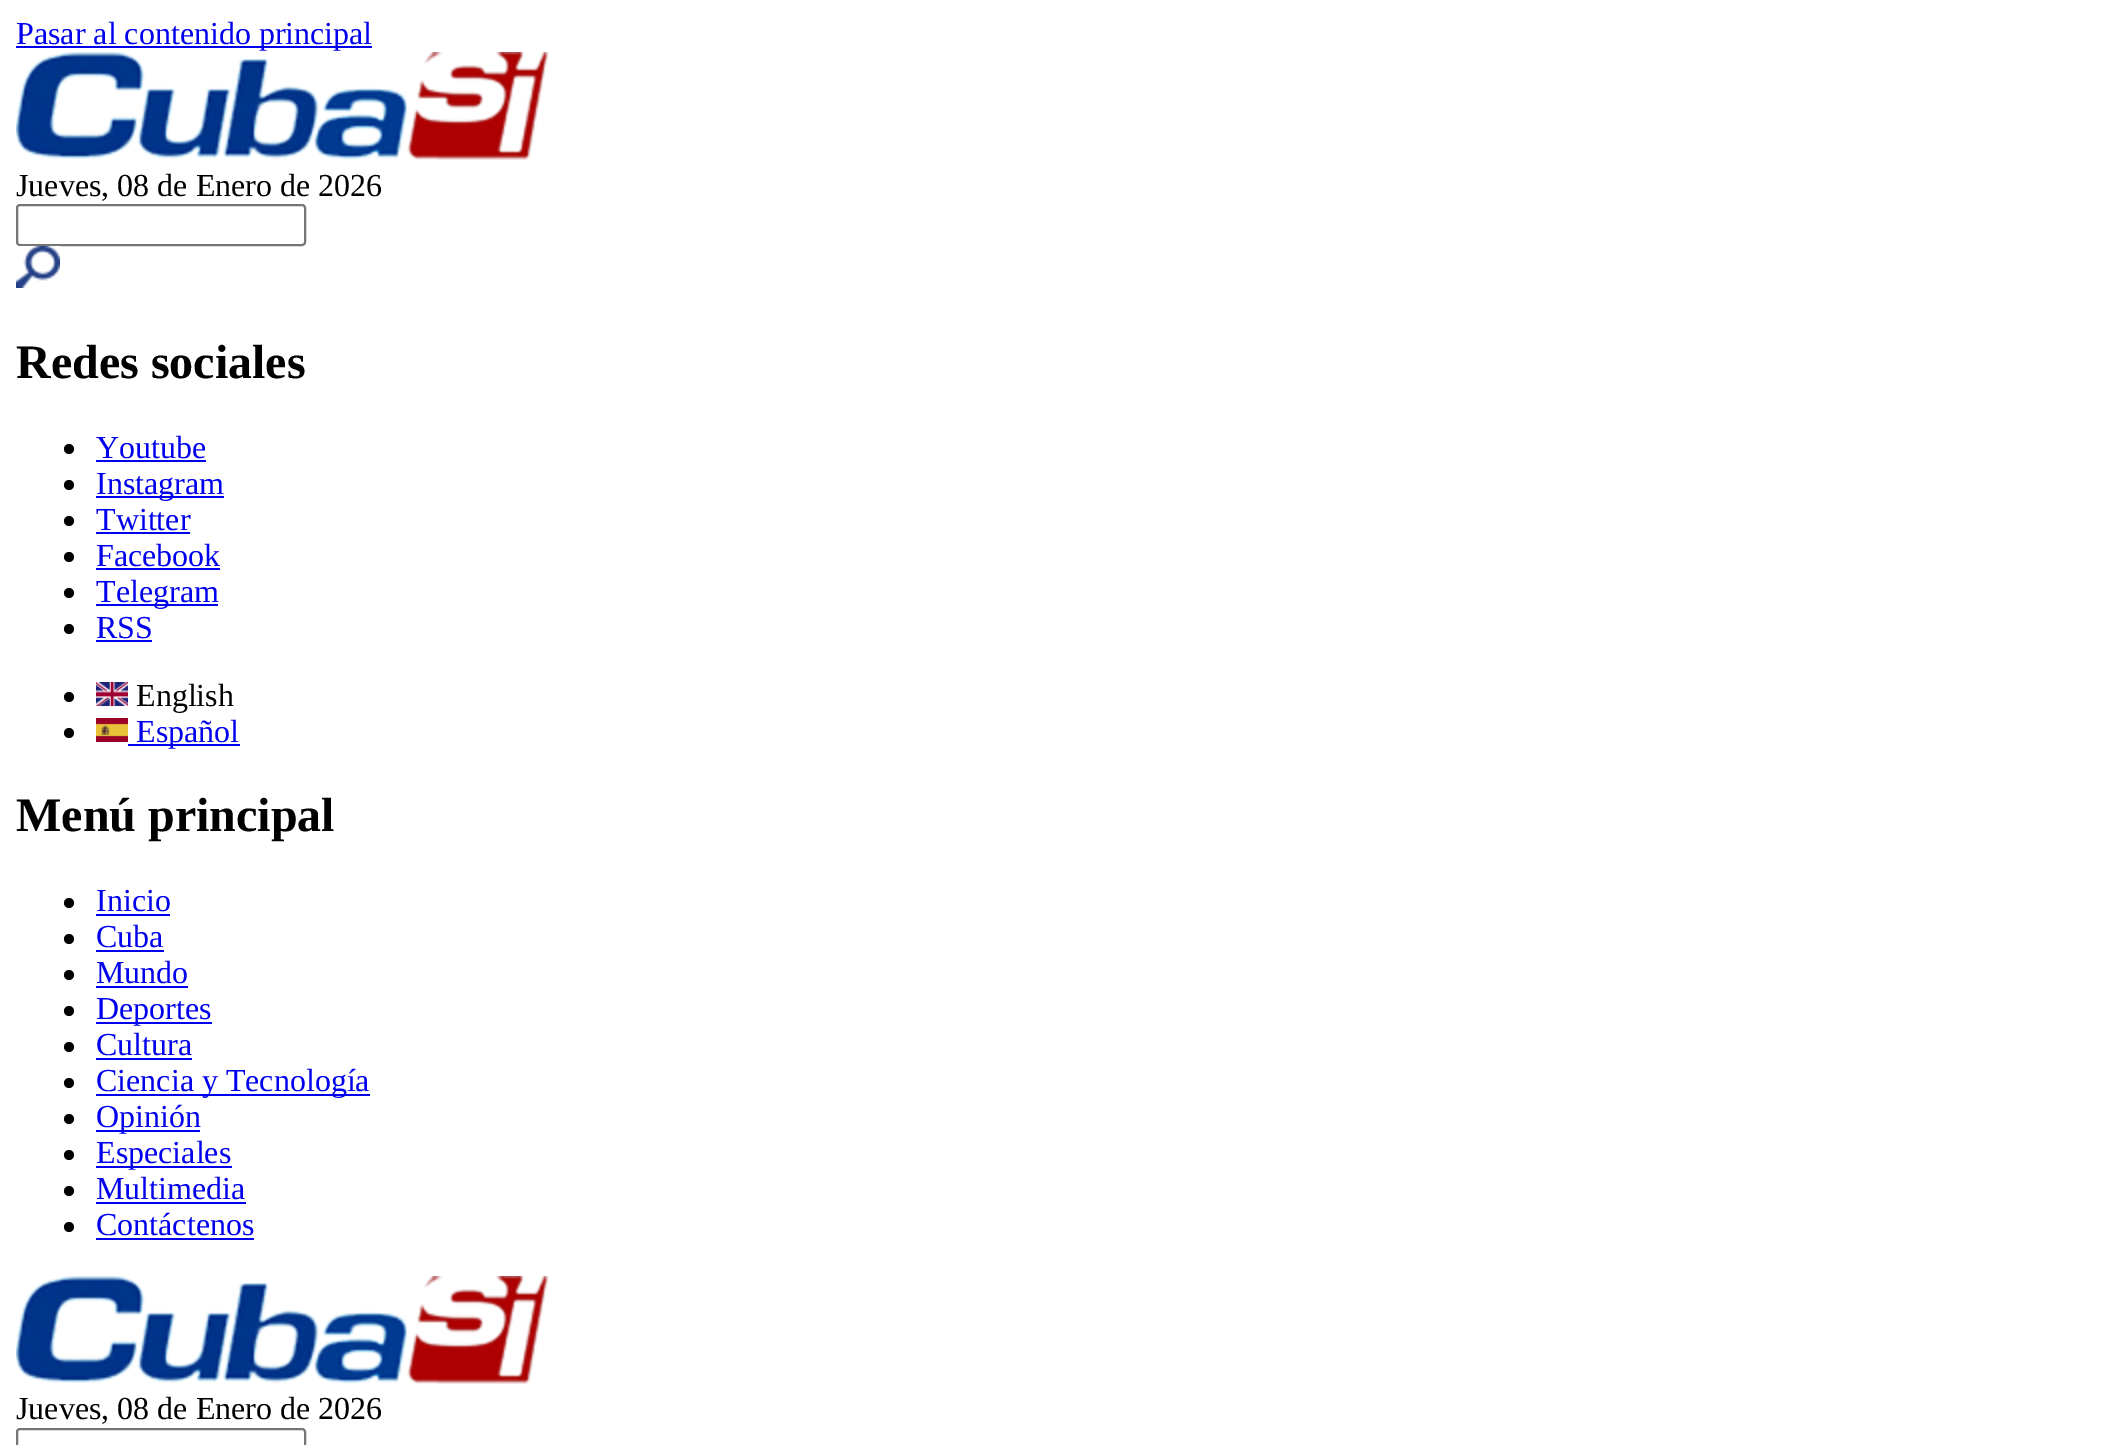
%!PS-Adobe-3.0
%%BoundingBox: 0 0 2122 1445
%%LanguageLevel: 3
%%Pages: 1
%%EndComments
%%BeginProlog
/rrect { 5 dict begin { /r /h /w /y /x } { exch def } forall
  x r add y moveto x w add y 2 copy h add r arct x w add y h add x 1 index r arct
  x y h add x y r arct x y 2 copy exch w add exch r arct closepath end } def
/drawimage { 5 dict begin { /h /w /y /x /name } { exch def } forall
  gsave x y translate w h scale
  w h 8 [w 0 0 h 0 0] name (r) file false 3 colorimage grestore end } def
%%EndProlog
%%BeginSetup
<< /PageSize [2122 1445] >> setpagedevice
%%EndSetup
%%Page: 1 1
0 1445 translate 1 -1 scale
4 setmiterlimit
1 setgray
0 0 2122 1445 rectfill
0 0 0.933 setrgbcolor
16 46 356 2 rectfill
(images/1.raw) 16 52 533 108 drawimage
0.463 setgray
2 setlinewidth
17 205 288 40 3 rrect stroke
(images/2.raw) 16 246 44 42 drawimage
0 setgray
newpath 69 449 5 0 360 arc closepath fill
0 0 0.933 setrgbcolor
96 460 110 2 rectfill
0 setgray
newpath 69 485 5 0 360 arc closepath fill
0 0 0.933 setrgbcolor
96 496 128 2 rectfill
0 setgray
newpath 69 521 5 0 360 arc closepath fill
0 0 0.933 setrgbcolor
96 532 94 2 rectfill
0 setgray
newpath 69 557 5 0 360 arc closepath fill
0 0 0.933 setrgbcolor
96 568 124 2 rectfill
0 setgray
newpath 69 593 5 0 360 arc closepath fill
0 0 0.933 setrgbcolor
96 604 122 2 rectfill
0 setgray
newpath 69 629 5 0 360 arc closepath fill
0 0 0.933 setrgbcolor
96 640 56 2 rectfill
0 setgray
newpath 69 697 5 0 360 arc closepath fill
(images/3.raw) 96 682 32 24 drawimage
newpath 69 733 5 0 360 arc closepath fill
(images/4.raw) 96 718 32 24 drawimage
0 0 0.933 setrgbcolor
128 744 112 2 rectfill
0 setgray
newpath 69 903 5 0 360 arc closepath fill
0 0 0.933 setrgbcolor
96 914 74 2 rectfill
0 setgray
newpath 69 939 5 0 360 arc closepath fill
0 0 0.933 setrgbcolor
96 950 68 2 rectfill
0 setgray
newpath 69 975 5 0 360 arc closepath fill
0 0 0.933 setrgbcolor
96 986 92 2 rectfill
0 setgray
newpath 69 1011 5 0 360 arc closepath fill
0 0 0.933 setrgbcolor
96 1022 116 2 rectfill
0 setgray
newpath 69 1047 5 0 360 arc closepath fill
0 0 0.933 setrgbcolor
96 1058 96 2 rectfill
0 setgray
newpath 69 1083 5 0 360 arc closepath fill
0 0 0.933 setrgbcolor
96 1094 274 2 rectfill
0 setgray
newpath 69 1119 5 0 360 arc closepath fill
0 0 0.933 setrgbcolor
96 1130 104 2 rectfill
0 setgray
newpath 69 1155 5 0 360 arc closepath fill
0 0 0.933 setrgbcolor
96 1166 136 2 rectfill
0 setgray
newpath 69 1191 5 0 360 arc closepath fill
0 0 0.933 setrgbcolor
96 1202 150 2 rectfill
0 setgray
newpath 69 1227 5 0 360 arc closepath fill
0 0 0.933 setrgbcolor
96 1238 158 2 rectfill
(images/1.raw) 16 1276 533 108 drawimage
0.463 setgray
17 1429 288 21 3 rrect stroke
/LiberationSerif-Regular [32 0 0 -32 0 0] selectfont
0 0 0.933 setrgbcolor
16 44 moveto (Pasar al contenido principal) show
0 setgray
16 196 moveto (Jueves, 08 de Enero de 2026) show
/LiberationSerif-Bold [48 0 0 -48 0 0] selectfont
16 378 moveto (Redes sociales) show
/LiberationSerif-Regular [32 0 0 -32 0 0] selectfont
0 0 0.933 setrgbcolor
96 458 moveto (Youtube) show
96 494 moveto (Instagram) show
96 530 moveto (Twitter) show
96 566 moveto (Facebook) show
96 602 moveto (Telegram) show
96 638 moveto (RSS) show
0 setgray
136 706 moveto (English) show
0 0 0.933 setrgbcolor
136 742 moveto (Español) show
/LiberationSerif-Bold [48 0 0 -48 0 0] selectfont
0 setgray
16 831 moveto (Menú principal) show
/LiberationSerif-Regular [32 0 0 -32 0 0] selectfont
0 0 0.933 setrgbcolor
96 911 moveto (Inicio) show
96 947 moveto (Cuba) show
96 983 moveto (Mundo) show
96 1019 moveto (Deportes) show
96 1055 moveto (Cultura) show
96 1091 moveto (Ciencia y Tecnología) show
96 1127 moveto (Opinión) show
96 1163 moveto (Especiales) show
96 1199 moveto (Multimedia) show
96 1235 moveto (Contáctenos) show
0 setgray
16 1419 moveto (Jueves, 08 de Enero de 2026) show
showpage
%%EOF
